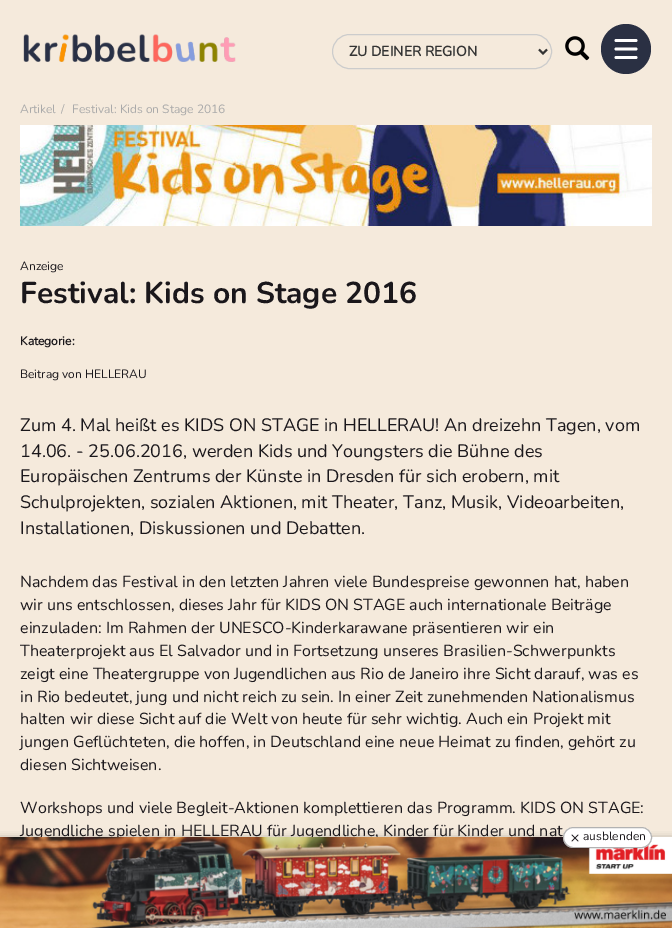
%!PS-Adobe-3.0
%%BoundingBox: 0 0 672 928
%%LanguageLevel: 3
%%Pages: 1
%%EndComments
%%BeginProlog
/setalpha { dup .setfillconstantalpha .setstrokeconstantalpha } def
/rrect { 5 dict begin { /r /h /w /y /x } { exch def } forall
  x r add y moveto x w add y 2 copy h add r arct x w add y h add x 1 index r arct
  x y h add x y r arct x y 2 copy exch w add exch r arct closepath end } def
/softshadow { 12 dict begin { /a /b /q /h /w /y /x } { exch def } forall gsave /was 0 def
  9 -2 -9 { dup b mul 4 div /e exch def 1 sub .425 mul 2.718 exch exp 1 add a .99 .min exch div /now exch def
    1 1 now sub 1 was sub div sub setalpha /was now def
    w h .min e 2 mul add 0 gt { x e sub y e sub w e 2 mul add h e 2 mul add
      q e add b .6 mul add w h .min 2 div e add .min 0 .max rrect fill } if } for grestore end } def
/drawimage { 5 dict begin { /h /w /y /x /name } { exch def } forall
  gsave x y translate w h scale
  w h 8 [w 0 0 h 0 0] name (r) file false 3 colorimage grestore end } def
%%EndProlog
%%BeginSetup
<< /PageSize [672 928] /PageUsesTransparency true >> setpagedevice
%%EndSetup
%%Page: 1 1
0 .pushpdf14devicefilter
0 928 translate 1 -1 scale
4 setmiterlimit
0.961 0.918 0.863 setrgbcolor
0 0 672 928 rectfill
(images/1.raw) 23 34 213 28 drawimage
0.8 setgray
332.5 34.5 219 34 17 rrect stroke
0.204 setgray
2 setlinewidth
newpath 539 49.5 moveto 543 53.5 lineto 547 49.5 lineto stroke
(images/2.raw) 565 36 25 25 drawimage
0.165 0.188 0.263 setrgbcolor
newpath 626 49 25 0 360 arc closepath fill
1 setgray
2.8 setlinewidth
1 setlinecap
newpath 616 40.5 moveto 636 40.5 lineto 636 49 moveto 616 49 lineto 636 57.5 moveto 616 57.5 lineto stroke
(images/3.raw) 20 125 632 101 drawimage
0.392 setgray
0 840 672 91 0 4 1 softshadow
/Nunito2-Bold [14 0 0 -14 0 0] selectfont
0.204 setgray
349 56 moveto (ZU DEINER REGION) show
/Nunito-Regular [12 0 0 -12 0 0] selectfont
0.667 setgray
20 113 moveto (Artikel) show
61 113 moveto (/) show
72 113 moveto (Festival: Kids on Stage 2016) show
0.102 0.09 0.106 setrgbcolor
20 270 moveto (Anzeige) show
/Nunito-Bold [30 0 0 -30 0 0] selectfont
20 303 moveto (Festival: Kids on Stage 2016) show
/Nunito2-Bold [12 0 0 -12 0 0] selectfont
20 345 moveto (Kategorie:) show
/Nunito-Regular [12 0 0 -12 0 0] selectfont
20 378 moveto (Beitrag von HELLERAU) show
/Nunito-Regular [18 0 0 -18 0 0] selectfont
20 431 moveto (Zum 4. Mal heißt es KIDS ON STAGE in HELLERAU! An dreizehn Tagen, vom) show
20 457 moveto (14.06. - 25.06.2016, werden Kids und Youngsters die Bühne des) show
20 482 moveto (Europäischen Zentrums der Künste in Dresden für sich erobern, mit) show
20 508 moveto (Schulprojekten, sozialen Aktionen, mit Theater, Tanz, Musik, Videoarbeiten,) show
20 534 moveto (Installationen, Diskussionen und Debatten.) show
/Nunito-Regular [16 0 0 -16 0 0] selectfont
20 587 moveto (Nachdem das Festival in den letzten Jahren viele Bundespreise gewonnen hat, haben) show
20 610 moveto (wir uns entschlossen, dieses Jahr für KIDS ON STAGE auch internationale Beiträge) show
20 633 moveto (einzuladen: Im Rahmen der UNESCO-Kinderkarawane präsentieren wir ein) show
20 656 moveto (Theaterprojekt aus El Salvador und in Fortsetzung unseres Brasilien-Schwerpunkts) show
20 679 moveto (zeigt eine Theatergruppe von Jugendlichen aus Rio de Janeiro ihre Sicht darauf, was es) show
20 702 moveto (in Rio bedeutet, jung und nicht reich zu sein. In einer Zeit zunehmenden Nationalismus) show
20 724 moveto (halten wir diese Sicht auf die Welt von heute für sehr wichtig. Auch ein Projekt mit) show
20 747 moveto (jungen Geflüchteten, die hoffen, in Deutschland eine neue Heimat zu finden, gehört zu) show
20 770 moveto (diesen Sichtweisen.) show
20 813 moveto (Workshops und viele Begleit-Aktionen komplettieren das Programm. KIDS ON STAGE:) show
20 836 moveto (Jugendliche spielen in HELLERAU für Jugendliche, Kinder für Kinder und nat) show
(images/5.raw) 0 837 672 91 drawimage
1 setgray
563 827 89 21 10.5 rrect fill
0.3 setalpha
0 setgray
1 setlinewidth
0 setlinecap
563.5 827.5 88 20 10 rrect stroke
1 setalpha
(images/4.raw) 571 834 8 8 drawimage
/Nunito-Regular [12 0 0 -12 0 0] selectfont
0.102 0.09 0.106 setrgbcolor
583 840 moveto (ausblenden) show
.poppdf14devicefilter showpage
%%EOF
